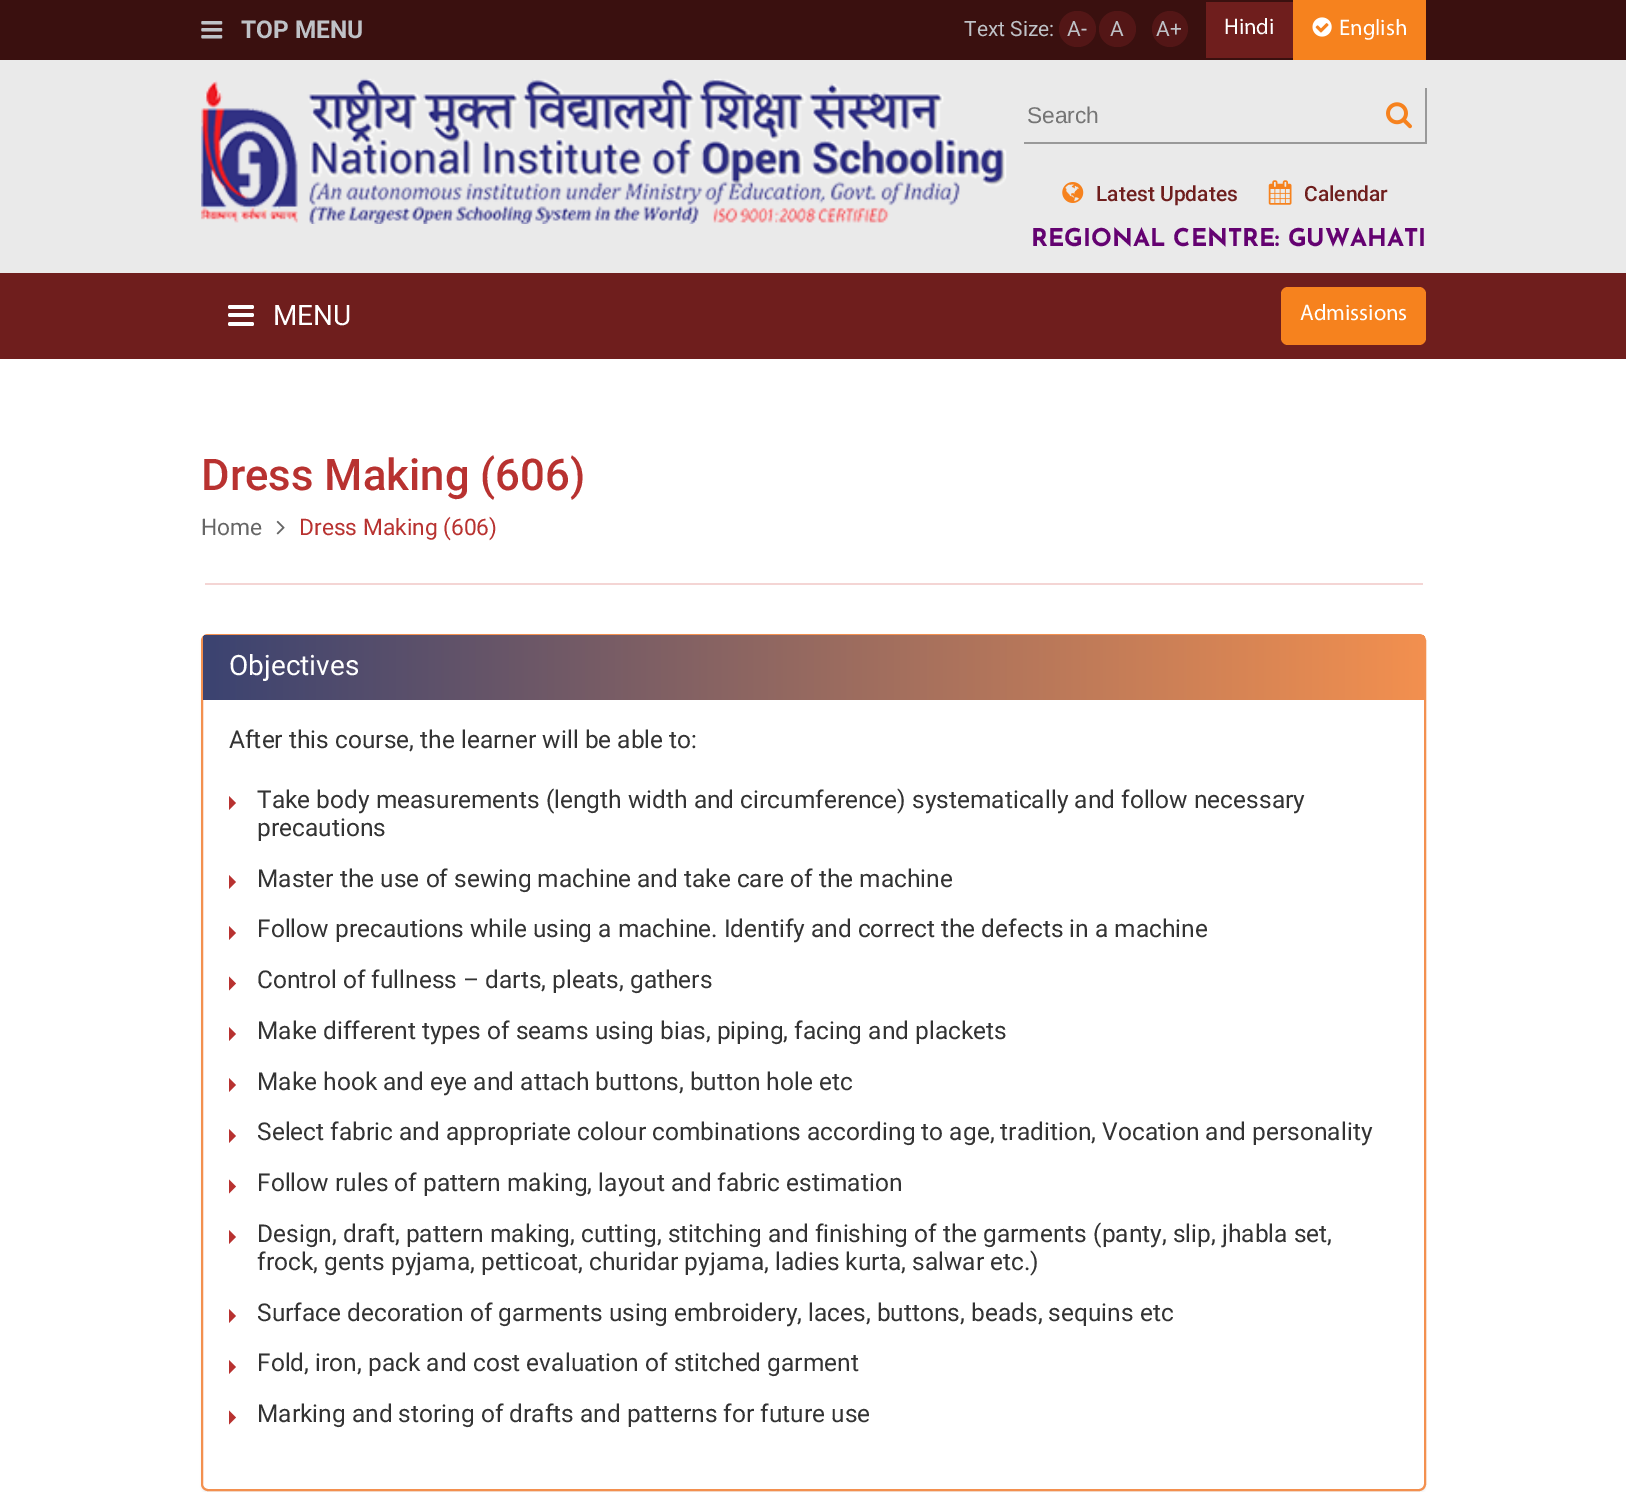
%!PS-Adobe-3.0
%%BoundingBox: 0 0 1626 1492
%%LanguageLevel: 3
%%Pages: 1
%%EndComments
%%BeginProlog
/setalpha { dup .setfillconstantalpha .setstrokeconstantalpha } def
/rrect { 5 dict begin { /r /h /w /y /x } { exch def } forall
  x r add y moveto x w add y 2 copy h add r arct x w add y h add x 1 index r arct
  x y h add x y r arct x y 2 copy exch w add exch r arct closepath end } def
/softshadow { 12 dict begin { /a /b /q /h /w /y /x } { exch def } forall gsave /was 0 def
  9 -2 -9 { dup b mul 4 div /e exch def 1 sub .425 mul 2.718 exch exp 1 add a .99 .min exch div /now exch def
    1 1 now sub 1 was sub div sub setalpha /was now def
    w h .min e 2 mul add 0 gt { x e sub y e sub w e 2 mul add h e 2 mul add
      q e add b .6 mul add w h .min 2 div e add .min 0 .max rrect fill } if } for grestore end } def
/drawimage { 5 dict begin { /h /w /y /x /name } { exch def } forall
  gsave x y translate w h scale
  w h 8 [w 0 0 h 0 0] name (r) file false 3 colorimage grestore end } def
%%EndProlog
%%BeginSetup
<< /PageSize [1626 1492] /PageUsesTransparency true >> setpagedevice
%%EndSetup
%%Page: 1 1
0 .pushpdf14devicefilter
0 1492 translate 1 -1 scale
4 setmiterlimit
1 setgray
0 0 1626 1492 rectfill
0.918 setgray
0 60 1626 213 rectfill
0.227 0.063 0.059 setrgbcolor
0 0 1626 60 rectfill
(images/1.raw) 201 21 22 18 drawimage
0.325 0.086 0.086 setrgbcolor
1059 11 37 36 18 rrect fill
1099 11 37 36 18 rrect fill
newpath 1170 29 18 0 360 arc closepath fill
0.435 0.118 0.114 setrgbcolor
1206 2 87 56 rectfill
0.965 0.51 0.118 setrgbcolor
1293 0 133 60 rectfill
(images/2.raw) 1312 17 20 20 drawimage
(images/3.raw) 201 78 806 146 drawimage
0.6 setgray
1425 88 2 56 rectfill
1024 142 402 2 rectfill
(images/4.raw) 1386 102 26 27 drawimage
(images/5.raw) 1062 182 22 21 drawimage
(images/6.raw) 1268 180 24 25 drawimage
0.435 0.118 0.114 setrgbcolor
0 273 1626 86 rectfill
1 setgray
228 305 26 4 2 rrect fill
228 313 26 4 2 rrect fill
228 322 26 4 2 rrect fill
0.965 0.51 0.118 setrgbcolor
1281 287 145 58 7 rrect fill
0.957 0.835 0.831 setrgbcolor
205 583 1218 2 rectfill
(images/7.raw) 276 520 9 15 drawimage
0 setgray
201 635 1225 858 7 1 0.05 softshadow
1 setgray
202 635 1223 855 6 rrect gsave fill grestore
0.953 0.565 0.31 setrgbcolor
2 setlinewidth
stroke
gsave newpath 208 635 moveto 1420 635 lineto 1423 635 1425 637 1425 640 curveto 1425 700 lineto 203 700 lineto 203 640 lineto 203 637 205 635 208 635 curveto closepath clip newpath
<< /ShadingType 2 /ColorSpace /DeviceRGB /Coords [203 667 1425 667] /Extend [true true] /Function << /FunctionType 2 /Domain [0 1] /C0 [0.231 0.263 0.443] /C1 [0.953 0.565 0.31] /N 1 >> >> shfill grestore
0.722 0.196 0.188 setrgbcolor
newpath 229 810 moveto 229 796 lineto 236 803 lineto closepath fill
newpath 229 889 moveto 229 875 lineto 236 882 lineto closepath fill
newpath 229 940 moveto 229 926 lineto 236 933 lineto closepath fill
newpath 229 990.5 moveto 229 976.5 lineto 236 983.5 lineto closepath fill
newpath 229 1041 moveto 229 1027 lineto 236 1034 lineto closepath fill
newpath 229 1092 moveto 229 1078 lineto 236 1085 lineto closepath fill
newpath 229 1143 moveto 229 1129 lineto 236 1136 lineto closepath fill
newpath 229 1193.5 moveto 229 1179.5 lineto 236 1186.5 lineto closepath fill
newpath 229 1244 moveto 229 1230 lineto 236 1237 lineto closepath fill
newpath 229 1323 moveto 229 1309 lineto 236 1316 lineto closepath fill
newpath 229 1374 moveto 229 1360 lineto 236 1367 lineto closepath fill
newpath 229 1424.5 moveto 229 1410.5 lineto 236 1417.5 lineto closepath fill
/Roboto-Bold [24.5 0 0 -24.5 0 0] selectfont
0.749 0.761 0.78 setrgbcolor
241 38 moveto (TOP MENU) show
/Roboto-Regular [21 0 0 -21 0 0] selectfont
964 36 moveto (Text Size:) show
1067 36 moveto (A-) show
1110 36 moveto (A) show
1156 36 moveto (A+) show
/Myriad-Regular [22.5 0 0 -22.5 0 0] selectfont
1 setgray
1224 34 moveto (Hindi) show
1339 35 moveto (English) show
/LiberationSans-Regular [22.75 0 0 -22.75 0 0] selectfont
0.459 setgray
1027 123 moveto (Search) show
/Roboto-Medium [21 0 0 -21 0 0] selectfont
0.435 0.118 0.114 setrgbcolor
1096 201 moveto (Latest Updates) show
1304 201 moveto (Calendar) show
/JosefinSans-Bold [24.5 0 0 -24.5 0 0] selectfont
0.392 0.008 0.443 setrgbcolor
1031 246 moveto (REGIONAL CENTRE: GUWAHATI) show
/Roboto-Regular [28 0 0 -28 0 0] selectfont
1 setgray
273 325 moveto (MENU) show
/Myriad-Regular [22.5 0 0 -22.5 0 0] selectfont
1300 320 moveto (Admissions) show
/Roboto-Medium [43.75 0 0 -43.75 0 0] selectfont
0.722 0.196 0.188 setrgbcolor
201 490 moveto (Dress Making \(606\)) show
/Roboto-Regular [22.75 0 0 -22.75 0 0] selectfont
0.4 setgray
201 535 moveto (Home) show
0.722 0.196 0.188 setrgbcolor
299 535 moveto (Dress Making \(606\)) show
/Roboto-Regular [28 0 0 -28 0 0] selectfont
1 setgray
229 675 moveto (Objectives) show
/Roboto-Regular [24.5 0 0 -24.5 0 0] selectfont
0.2 setgray
229 748 moveto (After this course, the learner will be able to:) show
257 808 moveto (Take body measurements \(length width and circumference\) systematically and follow necessary) show
257 836 moveto (precautions) show
257 887 moveto (Master the use of sewing machine and take care of the machine) show
257 937 moveto (Follow precautions while using a machine. Identify and correct the defects in a machine) show
257 988 moveto (Control of fullness – darts, pleats, gathers) show
257 1039 moveto (Make different types of seams using bias, piping, facing and plackets) show
257 1090 moveto (Make hook and eye and attach buttons, button hole etc) show
257 1140 moveto (Select fabric and appropriate colour combinations according to age, tradition, Vocation and personality) show
257 1191 moveto (Follow rules of pattern making, layout and fabric estimation) show
257 1242 moveto (Design, draft, pattern making, cutting, stitching and finishing of the garments \(panty, slip, jhabla set,) show
257 1270 moveto (frock, gents pyjama, petticoat, churidar pyjama, ladies kurta, salwar etc.\)) show
257 1321 moveto (Surface decoration of garments using embroidery, laces, buttons, beads, sequins etc) show
257 1371 moveto (Fold, iron, pack and cost evaluation of stitched garment) show
257 1422 moveto (Marking and storing of drafts and patterns for future use) show
.poppdf14devicefilter showpage
%%EOF
